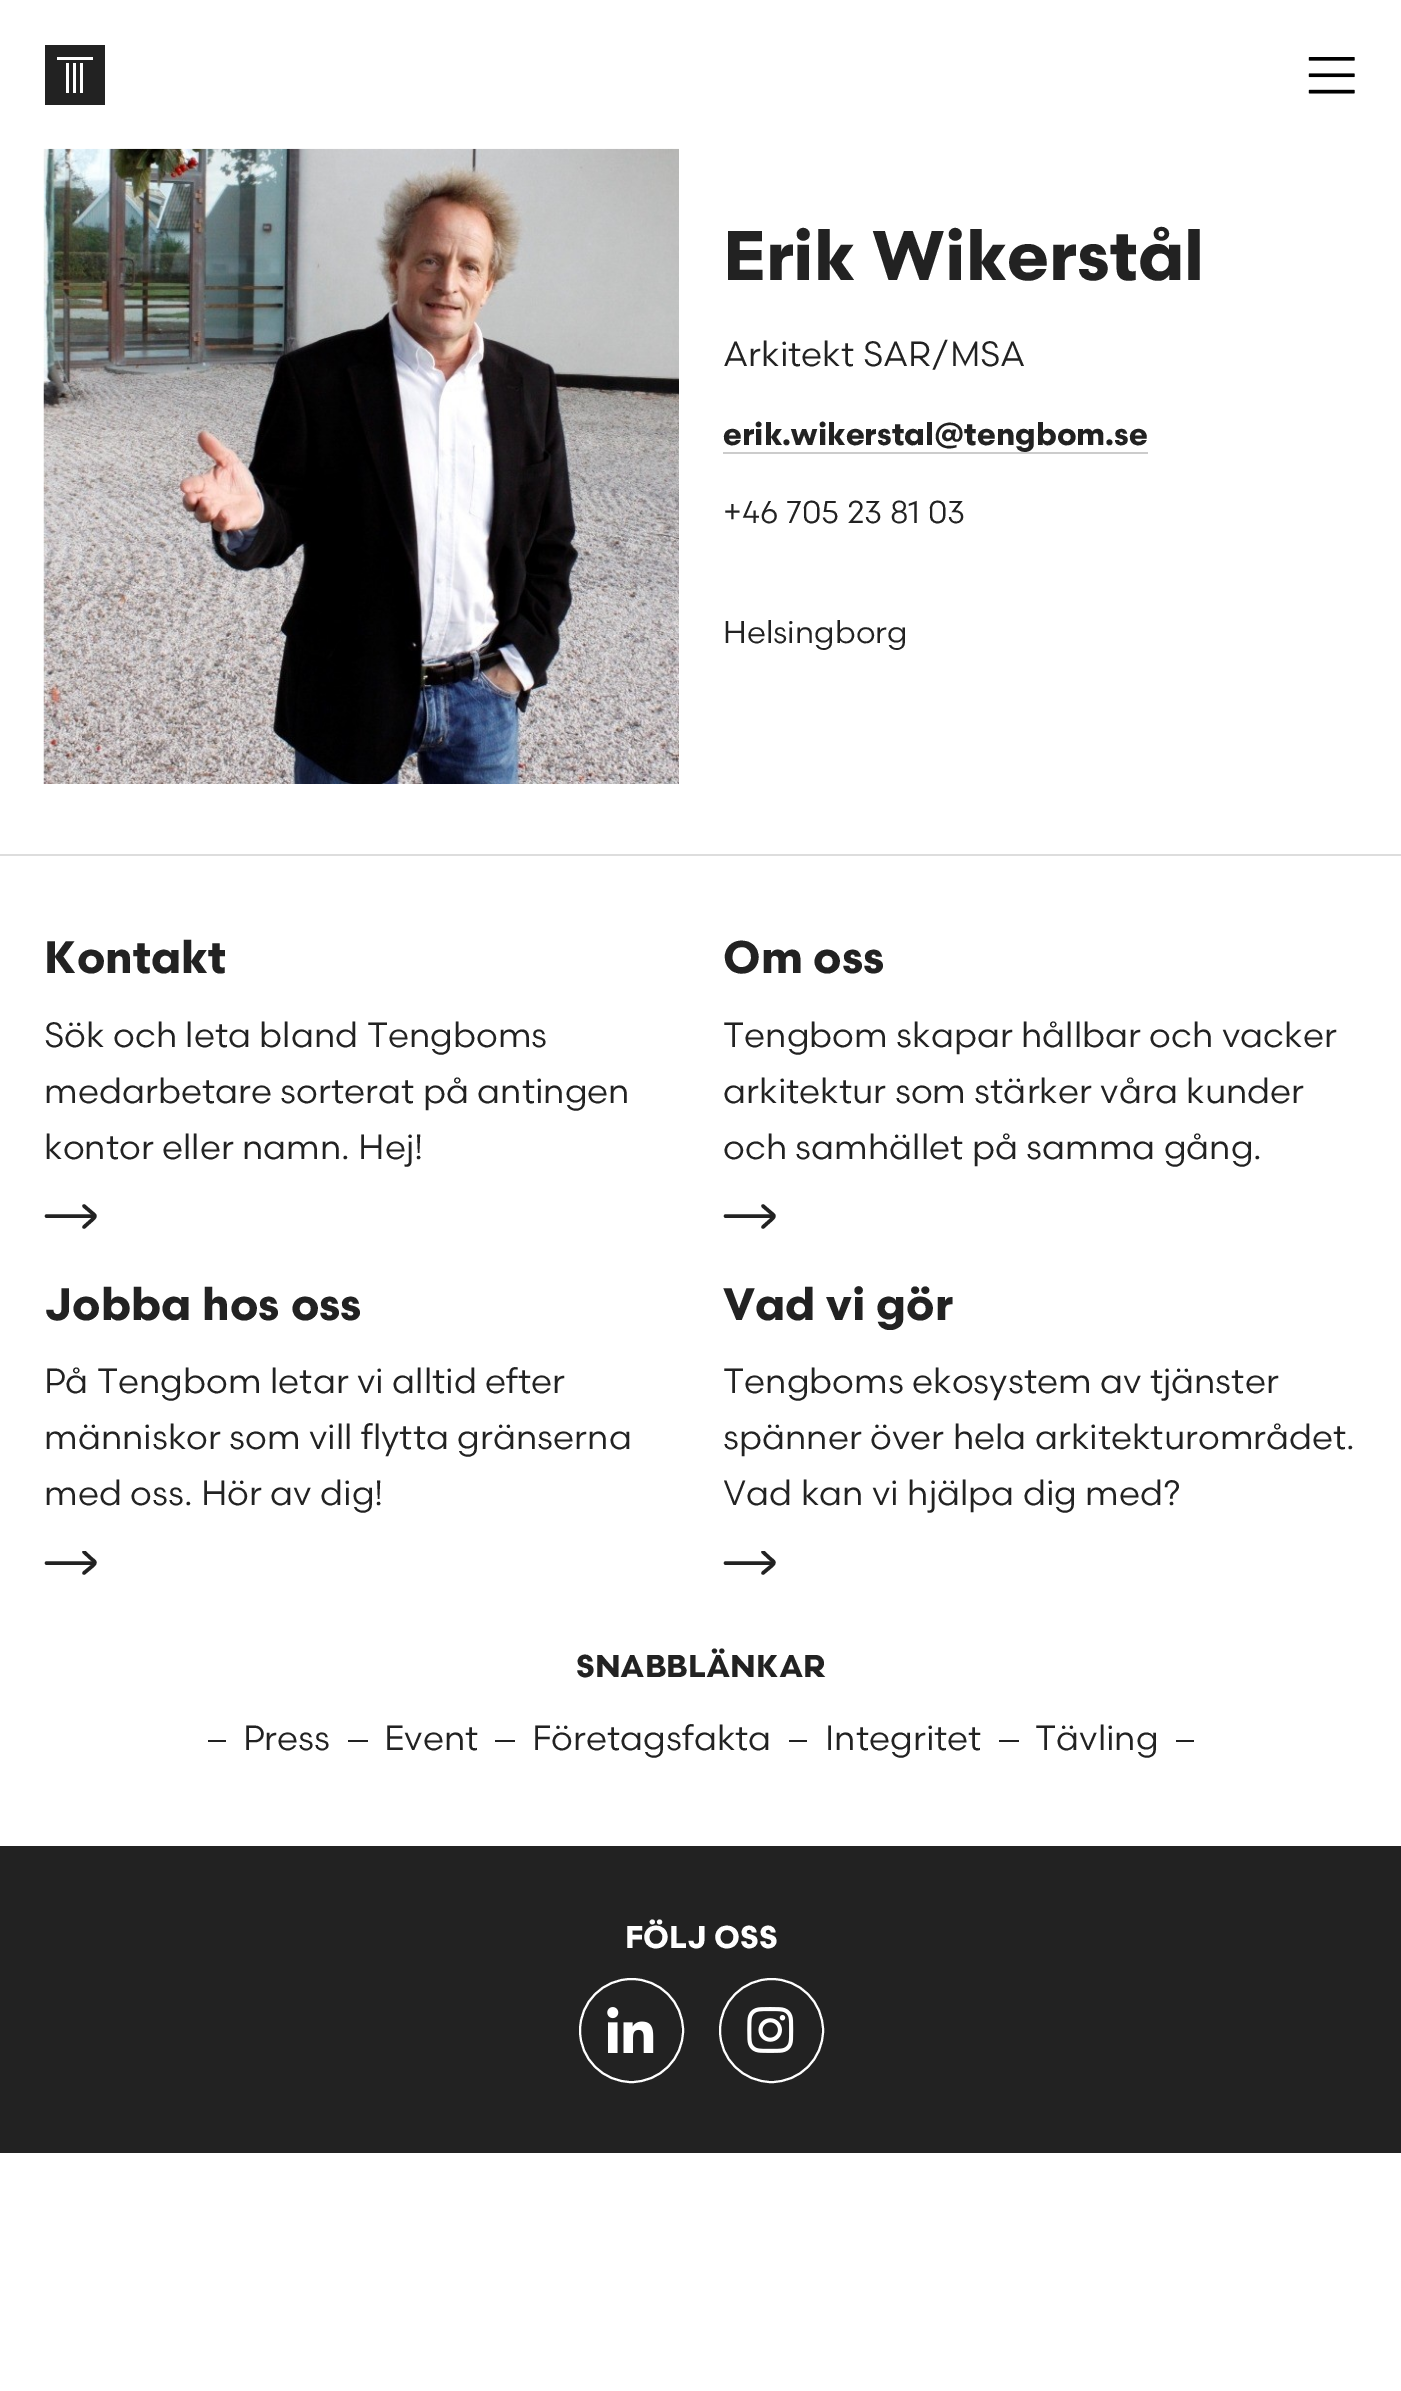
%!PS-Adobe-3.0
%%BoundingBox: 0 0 1401 2391
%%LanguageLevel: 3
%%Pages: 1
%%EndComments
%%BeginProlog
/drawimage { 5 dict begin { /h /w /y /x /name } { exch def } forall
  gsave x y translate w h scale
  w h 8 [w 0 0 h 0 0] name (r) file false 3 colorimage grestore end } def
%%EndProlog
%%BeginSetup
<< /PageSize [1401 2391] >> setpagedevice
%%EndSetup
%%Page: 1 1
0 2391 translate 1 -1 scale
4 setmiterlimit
1 setgray
0 0 1401 2391 rectfill
0.133 setgray
newpath 93 60 moveto 57 60 lineto 57 57 lineto 93 57 lineto closepath 83 93 moveto 80 93 lineto 80 63 lineto 83 63 lineto closepath 76 93 moveto 73 93 lineto 73 63 lineto 76 63 lineto closepath 69 93 moveto 66 93 lineto 66 63 lineto 69 63 lineto closepath 45 105 moveto 105 105 lineto 105 45 lineto 45 45 lineto closepath fill
(images/1.raw) 1308 57 47 37 drawimage
(images/2.raw) 43 148 636 636 drawimage
0.8 setgray
723 452 425 2 rectfill
0.867 setgray
0 854 1401 2 rectfill
0.133 setgray
3.5 setlinewidth
1 setlinecap
1 setlinejoin
newpath 84 1227 moveto 93 1219 lineto 96.5 1215.5 95 1215.5 91 1212 curveto 84 1206 lineto stroke
0 setlinejoin
newpath 93 1216 moveto 46.5 1216 lineto stroke
1 setlinejoin
newpath 763 1227 moveto 772 1219 lineto 775.5 1215.5 774 1215.5 770 1212 curveto 763 1206 lineto stroke
0 setlinejoin
newpath 772 1216 moveto 725.5 1216 lineto stroke
gsave
44 1551 54 24 rectclip
1 setlinejoin
newpath 84 1573 moveto 93 1565.5 lineto 96.5 1562 95 1562 91 1558.5 curveto 84 1552 lineto stroke
grestore
newpath 93 1563 moveto 46.5 1563 lineto stroke
gsave
723 1551 54 24 rectclip
1 setlinejoin
newpath 763 1573 moveto 772 1565.5 lineto 775.5 1562 774 1562 770 1558.5 curveto 763 1552 lineto stroke
grestore
newpath 772 1563 moveto 725.5 1563 lineto stroke
208 1740 18 2 rectfill
348 1740 20 2 rectfill
495 1740 20 2 rectfill
789 1740 18 2 rectfill
999 1740 20 2 rectfill
1176 1740 18 2 rectfill
0 1846 1401 307 rectfill
1 setgray
2 setlinewidth
0 setlinecap
newpath 631.5 2030.5 51.5 0 360 arc closepath stroke
(images/3.raw) 607 2007 47 46 drawimage
newpath 771.5 2030.5 51.5 0 360 arc closepath stroke
(images/4.raw) 747 2007 47 46 drawimage
/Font-Bold [70 0 0 -70 0 0] selectfont
0.133 setgray
723 280 moveto (Erik Wikerstål) show
/Font-Regular [35 0 0 -35 0 0] selectfont
723 366 moveto (Arkitekt SAR/MSA) show
/Font-Bold [31.5 0 0 -31.5 0 0] selectfont
723 445 moveto (erik.wikerstal@tengbom.se) show
/Font-Regular [31.5 0 0 -31.5 0 0] selectfont
723 523 moveto (+46 705 23 81 03) show
723 643 moveto (Helsingborg) show
/Font-Bold [45.5 0 0 -45.5 0 0] selectfont
44 973 moveto (Kontakt) show
/Font-Regular [35 0 0 -35 0 0] selectfont
44 1047 moveto (Sök och leta bland Tengboms) show
44 1103 moveto (medarbetare sorterat på antingen) show
44 1159 moveto (kontor eller namn. Hej!) show
/Font-Bold [45.5 0 0 -45.5 0 0] selectfont
723 973 moveto (Om oss) show
/Font-Regular [35 0 0 -35 0 0] selectfont
723 1047 moveto (Tengbom skapar hållbar och vacker) show
723 1103 moveto (arkitektur som stärker våra kunder) show
723 1159 moveto (och samhället på samma gång.) show
/Font-Bold [45.5 0 0 -45.5 0 0] selectfont
44 1320 moveto (Jobba hos oss) show
/Font-Regular [35 0 0 -35 0 0] selectfont
44 1393 moveto (På Tengbom letar vi alltid efter) show
44 1449 moveto (människor som vill flytta gränserna) show
44 1505 moveto (med oss. Hör av dig!) show
/Font-Bold [45.5 0 0 -45.5 0 0] selectfont
723 1320 moveto (Vad vi gör) show
/Font-Regular [35 0 0 -35 0 0] selectfont
723 1393 moveto (Tengboms ekosystem av tjänster) show
723 1449 moveto (spänner över hela arkitekturområdet.) show
723 1505 moveto (Vad kan vi hjälpa dig med?) show
/Font-Bold [31.5 0 0 -31.5 0 0] selectfont
576 1677 moveto (SNABBLÄNKAR) show
/Font-Regular [35 0 0 -35 0 0] selectfont
243 1750 moveto (Press) show
384 1750 moveto (Event) show
532 1750 moveto (Företagsfakta) show
825 1750 moveto (Integritet) show
1035 1750 moveto (Tävling) show
/Font-Bold [31.5 0 0 -31.5 0 0] selectfont
1 setgray
625 1948 moveto (FÖLJ OSS) show
showpage
%%EOF
